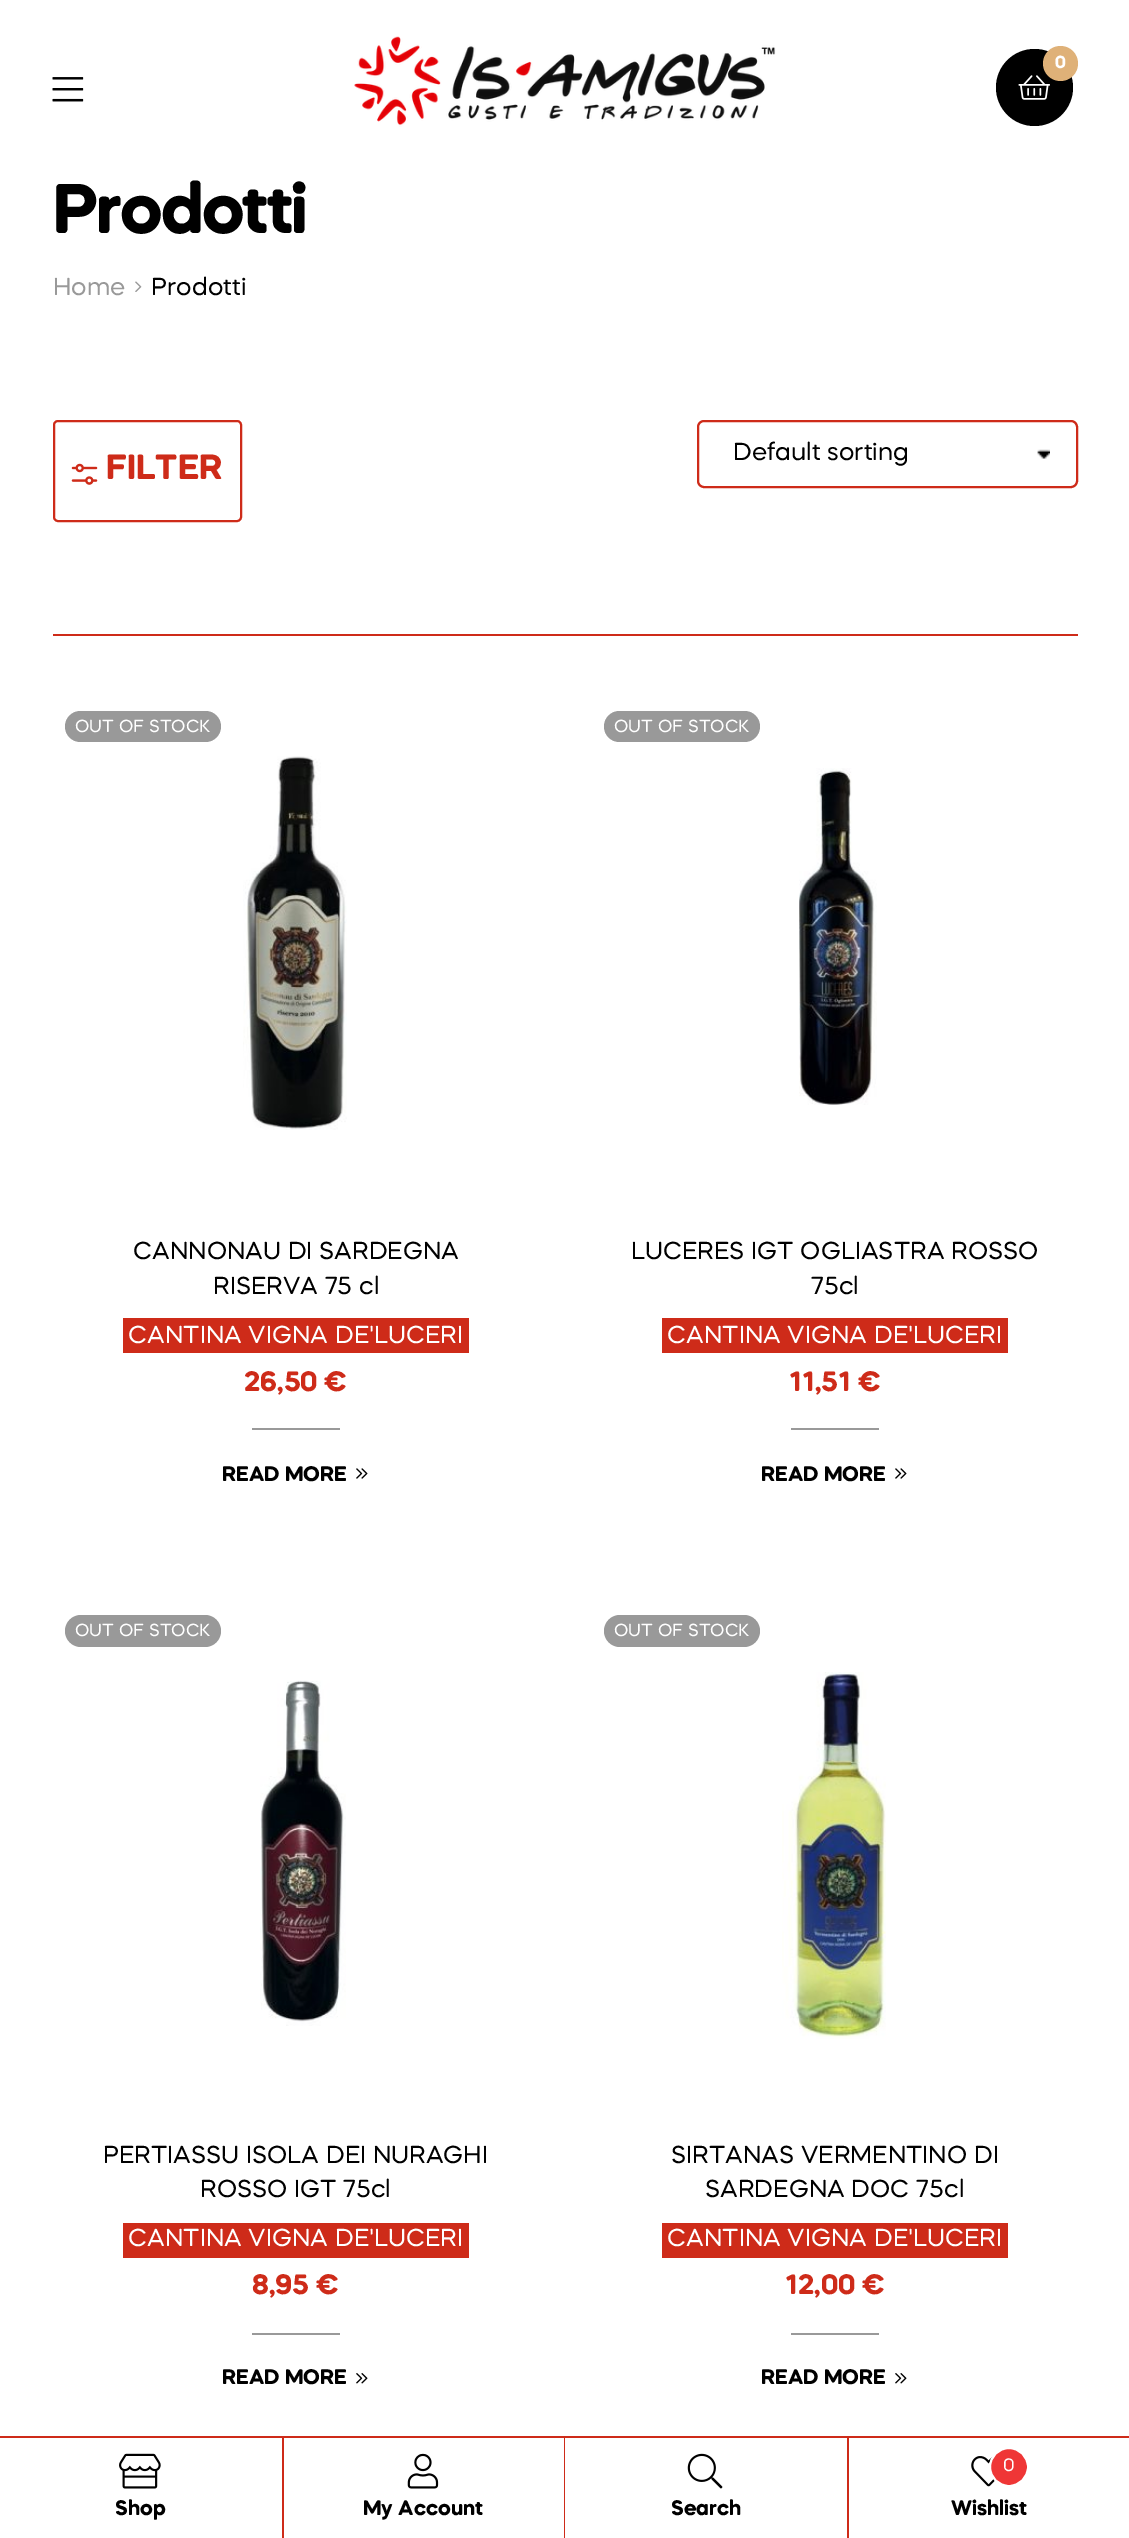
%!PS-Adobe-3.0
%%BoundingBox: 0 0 1129 2538
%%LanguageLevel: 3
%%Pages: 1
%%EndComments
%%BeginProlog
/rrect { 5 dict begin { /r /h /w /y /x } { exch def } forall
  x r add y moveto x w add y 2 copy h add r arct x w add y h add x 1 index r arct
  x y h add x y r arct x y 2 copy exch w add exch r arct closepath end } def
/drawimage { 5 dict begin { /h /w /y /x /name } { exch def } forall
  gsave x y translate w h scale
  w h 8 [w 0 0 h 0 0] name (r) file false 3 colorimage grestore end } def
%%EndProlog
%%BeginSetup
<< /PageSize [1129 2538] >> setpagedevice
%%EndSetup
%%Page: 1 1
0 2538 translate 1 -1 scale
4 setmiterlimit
1 setgray
0 0 1129 2538 rectfill
(images/1.raw) 354 36 422 91 drawimage
0 setgray
newpath 1034.5 87.5 38.5 0 360 arc closepath fill
(images/2.raw) 1018 75 32 25 drawimage
0.875 0.694 0.471 setrgbcolor
newpath 1060.5 63.5 17.5 0 360 arc closepath fill
(images/3.raw) 52 77 32 25 drawimage
(images/4.raw) 135 281 7 11 drawimage
0.808 0.169 0.098 setrgbcolor
53 634 1025 2 rectfill
2 setlinewidth
54 421 187 100 4 rrect stroke
(images/5.raw) 71 463 27 22 drawimage
(images/6.raw) 1037 449 13 10 drawimage
698 421 379 66 6 rrect stroke
0.6 setgray
65 711 156 31 15.5 rrect fill
(images/7.raw) 243 756 104 374 drawimage
0.808 0.169 0.098 setrgbcolor
123 1318 346 35 rectfill
0.6 setgray
252 1428 88 2 rectfill
(images/8.raw) 356 1468 12 11 drawimage
604 711 156 31 15.5 rrect fill
(images/9.raw) 799 768 78 337 drawimage
0.808 0.169 0.098 setrgbcolor
662 1318 346 35 rectfill
0.6 setgray
791 1428 88 2 rectfill
(images/8.raw) 895 1468 12 11 drawimage
65 1615 156 32 16 rrect fill
(images/10.raw) 260 1680 86 346 drawimage
0.808 0.169 0.098 setrgbcolor
123 2223 346 35 rectfill
0.6 setgray
252 2333 88 2 rectfill
(images/11.raw) 356 2373 12 11 drawimage
604 1615 156 32 16 rrect fill
(images/12.raw) 782 1672 104 367 drawimage
0.808 0.169 0.098 setrgbcolor
662 2223 346 35 rectfill
0.6 setgray
791 2333 88 2 rectfill
(images/11.raw) 895 2373 12 11 drawimage
0.808 0.169 0.098 setrgbcolor
0 2436 1129 2 rectfill
282 2436 2 102 rectfill
(images/13.raw) 119 2453 42 36 drawimage
564 2436 1 102 rectfill
(images/14.raw) 407 2453 32 36 drawimage
847 2436 2 102 rectfill
(images/15.raw) 687 2453 36 36 drawimage
(images/16.raw) 971 2456 24 31 drawimage
0.937 0.212 0.212 setrgbcolor
newpath 1009 2467 19 0 360 arc closepath gsave fill grestore
1 setgray
stroke
/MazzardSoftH-Bold [17.5 0 0 -17.5 0 0] selectfont
1055 68 moveto (0) show
/MazzardSoftH-Bold [70 0 0 -70 0 0] selectfont
0 setgray
53 233 moveto -1.75 0 (Prodotti) ashow
/MazzardSoftH-Regular [24.5 0 0 -24.5 0 0] selectfont
0.6 setgray
53 295 moveto (Home) show
0 setgray
151 295 moveto (Prodotti) show
/MazzardSoftH-Bold [35 0 0 -35 0 0] selectfont
0.808 0.169 0.098 setrgbcolor
106 479 moveto (FILTER) show
/MazzardSoftH-Regular [24.5 0 0 -24.5 0 0] selectfont
0 setgray
733 460 moveto (Default sorting) show
/MazzardSoftH-Regular [17.5 0 0 -17.5 0 0] selectfont
1 setgray
75 732 moveto (OUT OF STOCK) show
/MazzardSoftH-Regular [24.5 0 0 -24.5 0 0] selectfont
0 setgray
133 1259 moveto (CANNONAU DI SARDEGNA) show
213 1294 moveto (RISERVA 75 cl) show
1 setgray
128 1343 moveto (CANTINA VIGNA DE'LUCERI) show
/MazzardSoftH-Bold [28 0 0 -28 0 0] selectfont
0.808 0.169 0.098 setrgbcolor
244 1391 moveto (26,50 €) show
/MazzardSoftH-Bold [21 0 0 -21 0 0] selectfont
0 setgray
222 1481 moveto (READ MORE) show
/MazzardSoftH-Regular [17.5 0 0 -17.5 0 0] selectfont
1 setgray
614 732 moveto (OUT OF STOCK) show
/MazzardSoftH-Regular [24.5 0 0 -24.5 0 0] selectfont
0 setgray
631 1259 moveto (LUCERES IGT OGLIASTRA ROSSO) show
811 1294 moveto (75cl) show
1 setgray
667 1343 moveto (CANTINA VIGNA DE'LUCERI) show
/MazzardSoftH-Bold [28 0 0 -28 0 0] selectfont
0.808 0.169 0.098 setrgbcolor
789 1391 moveto (11,51 €) show
/MazzardSoftH-Bold [21 0 0 -21 0 0] selectfont
0 setgray
761 1481 moveto (READ MORE) show
/MazzardSoftH-Regular [17.5 0 0 -17.5 0 0] selectfont
1 setgray
75 1636 moveto (OUT OF STOCK) show
/MazzardSoftH-Regular [24.5 0 0 -24.5 0 0] selectfont
0 setgray
103 2163 moveto (PERTIASSU ISOLA DEI NURAGHI) show
200 2197 moveto (ROSSO IGT 75cl) show
1 setgray
128 2246 moveto (CANTINA VIGNA DE'LUCERI) show
/MazzardSoftH-Bold [28 0 0 -28 0 0] selectfont
0.808 0.169 0.098 setrgbcolor
252 2294 moveto (8,95 €) show
/MazzardSoftH-Bold [21 0 0 -21 0 0] selectfont
0 setgray
222 2384 moveto (READ MORE) show
/MazzardSoftH-Regular [17.5 0 0 -17.5 0 0] selectfont
1 setgray
614 1636 moveto (OUT OF STOCK) show
/MazzardSoftH-Regular [24.5 0 0 -24.5 0 0] selectfont
0 setgray
671 2163 moveto (SIRTANAS VERMENTINO DI) show
705 2197 moveto (SARDEGNA DOC 75cl) show
1 setgray
667 2246 moveto (CANTINA VIGNA DE'LUCERI) show
/MazzardSoftH-Bold [28 0 0 -28 0 0] selectfont
0.808 0.169 0.098 setrgbcolor
785 2294 moveto (12,00 €) show
/MazzardSoftH-Bold [21 0 0 -21 0 0] selectfont
0 setgray
761 2384 moveto (READ MORE) show
115 2515 moveto (Shop) show
363 2515 moveto (My Account) show
671 2515 moveto (Search) show
/MazzardSoftH-Regular [18 0 0 -18 0 0] selectfont
1 setgray
1003 2471 moveto (0) show
/MazzardSoftH-Bold [21 0 0 -21 0 0] selectfont
0 setgray
951 2515 moveto (Wishlist) show
showpage
%%EOF
